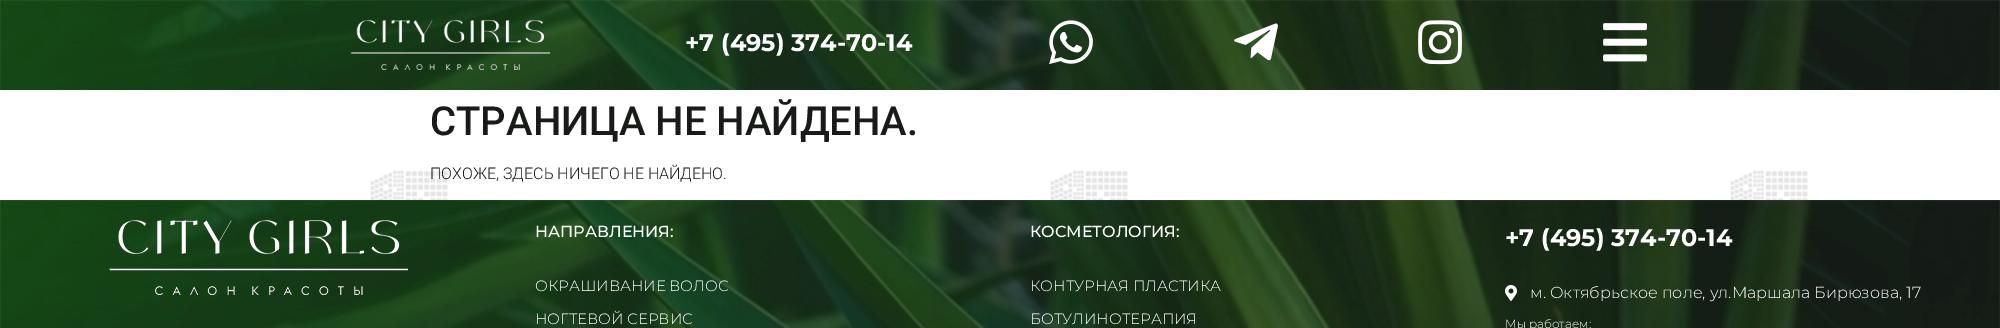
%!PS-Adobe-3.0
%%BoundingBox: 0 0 2000 328
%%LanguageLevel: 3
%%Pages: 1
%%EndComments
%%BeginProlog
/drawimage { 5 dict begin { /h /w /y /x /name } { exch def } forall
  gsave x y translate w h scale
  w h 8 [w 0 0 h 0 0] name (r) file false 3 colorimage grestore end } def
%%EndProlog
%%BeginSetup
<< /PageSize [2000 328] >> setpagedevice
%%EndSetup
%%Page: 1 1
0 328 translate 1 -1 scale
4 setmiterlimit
1 setgray
0 0 2000 328 rectfill
(images/1.raw) 30 170 1960 158 drawimage
(images/2.raw) 0 0 2000 90 drawimage
(images/3.raw) 350 20 200 50 drawimage
(images/4.raw) 1049 20 44 45 drawimage
(images/5.raw) 1234 23 44 38 drawimage
(images/6.raw) 1418 20 44 45 drawimage
(images/7.raw) 1603 23 44 39 drawimage
(images/8.raw) 0 200 2000 128 drawimage
(images/9.raw) 109 220 299 75 drawimage
(images/10.raw) 1505 285 12 16 drawimage
/Montserrat-Bold [24 0 0 -24 0 0] selectfont
685 51 moveto (+7 \(495\) 374-70-14) show
/Roboto-Medium [40 0 0 -40 0 0] selectfont
0.094 0.106 0.09 setrgbcolor
430 135 moveto (СТРАНИЦА НЕ НАЙДЕНА.) show
/Roboto-Light [16 0 0 -16 0 0] selectfont
430 179 moveto (ПОХОЖЕ, ЗДЕСЬ НИЧЕГО НЕ НАЙДЕНО.) show
/Montserrat-Medium [16 0 0 -16 0 0] selectfont
1 setgray
535 237 moveto (НАПРАВЛЕНИЯ:) show
/Montserrat-Light [15 0 0 -15 0 0] selectfont
535 291 moveto (ОКРАШИВАНИЕ ВОЛОС) show
535 324 moveto (НОГТЕВОЙ СЕРВИС) show
/Montserrat-Medium [16 0 0 -16 0 0] selectfont
1030 237 moveto (КОСМЕТОЛОГИЯ:) show
/Montserrat-Light [15 0 0 -15 0 0] selectfont
1030 291 moveto (КОНТУРНАЯ ПЛАСТИКА) show
1030 324 moveto (БОТУЛИНОТЕРАПИЯ) show
/Montserrat-Bold [24 0 0 -24 0 0] selectfont
1505 246 moveto (+7 \(495\) 374-70-14) show
/Montserrat-Light [16 0 0 -16 0 0] selectfont
1530 298 moveto (м. Октябрьское поле, ул.Маршала Бирюзова, 17) show
/Montserrat-Light [12 0 0 -12 0 0] selectfont
1505 328 moveto (Мы работаем:) show
showpage
%%EOF
